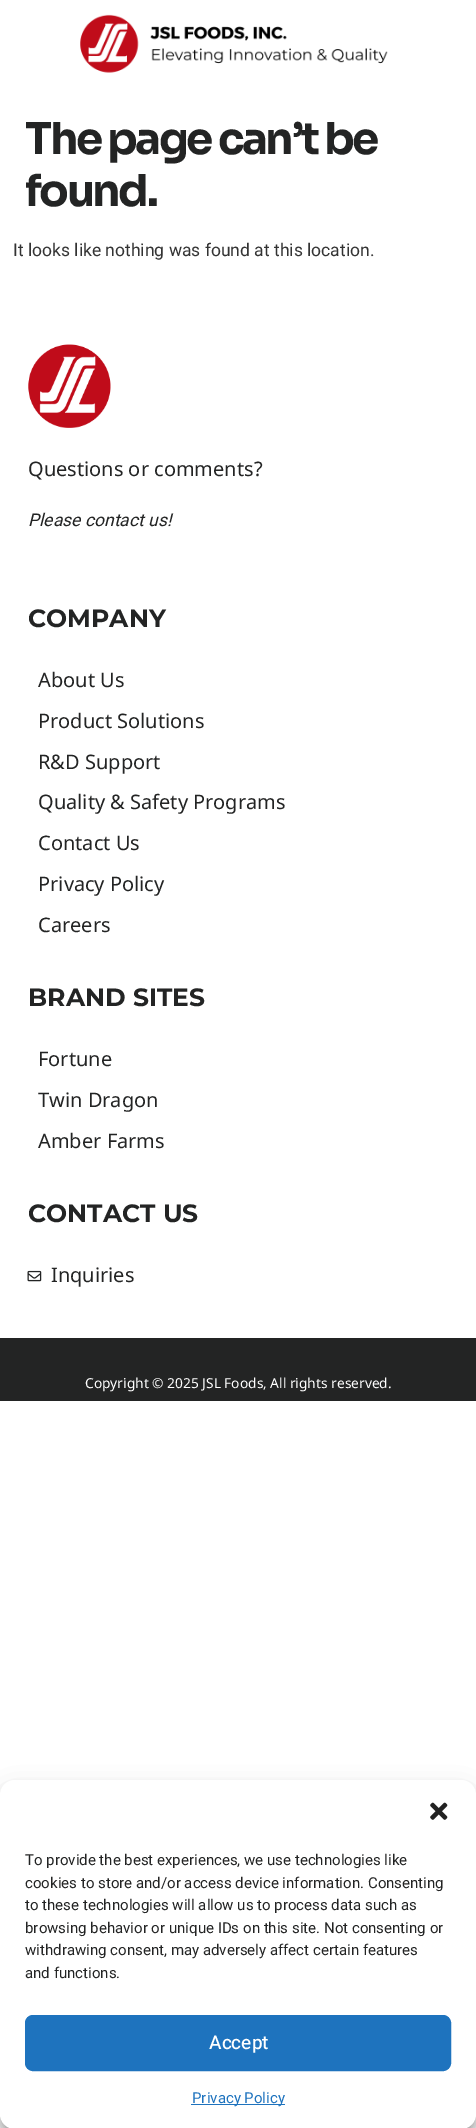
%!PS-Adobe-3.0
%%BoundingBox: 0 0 476 2128
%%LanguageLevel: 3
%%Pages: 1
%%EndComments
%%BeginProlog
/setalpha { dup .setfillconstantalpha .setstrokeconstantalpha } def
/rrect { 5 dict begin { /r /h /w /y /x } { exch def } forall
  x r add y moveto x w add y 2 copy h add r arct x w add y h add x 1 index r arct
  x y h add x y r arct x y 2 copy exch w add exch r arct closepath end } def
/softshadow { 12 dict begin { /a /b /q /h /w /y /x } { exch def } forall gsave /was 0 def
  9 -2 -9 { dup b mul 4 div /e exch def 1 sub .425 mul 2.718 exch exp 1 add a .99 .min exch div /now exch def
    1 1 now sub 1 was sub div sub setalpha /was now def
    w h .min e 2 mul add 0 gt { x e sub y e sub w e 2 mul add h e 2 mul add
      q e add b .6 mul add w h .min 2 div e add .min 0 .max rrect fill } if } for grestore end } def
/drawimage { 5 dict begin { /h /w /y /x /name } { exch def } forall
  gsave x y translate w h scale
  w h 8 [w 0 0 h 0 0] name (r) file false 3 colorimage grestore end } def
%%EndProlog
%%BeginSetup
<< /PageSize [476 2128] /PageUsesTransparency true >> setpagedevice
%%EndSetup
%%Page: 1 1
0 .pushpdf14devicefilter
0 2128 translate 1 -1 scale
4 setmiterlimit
1 setgray
0 0 476 2128 rectfill
(images/1.raw) 80 14 308 59 drawimage
(images/2.raw) 28 344 83 84 drawimage
(images/3.raw) 27 1270 15 12 drawimage
0.137 0.141 0.141 setrgbcolor
0 1338 476 63 rectfill
0 setgray
0 1788 476 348 15 4 0.23 softshadow
0 1793 476 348 15 12.5 0.19 softshadow
1 setgray
0 1780 476 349 15 rrect fill
(images/4.raw) 430 1802 18 18 drawimage
0.118 0.451 0.745 setrgbcolor
25.5 2015.5 425 55 7.5 rrect gsave fill grestore
stroke
191 2104 94 1 rectfill
/Sora-Bold [43.75 0 0 -43.75 0 0] selectfont
0.137 0.141 0.141 setrgbcolor
25 154 moveto -2.5 0 (The page can’t be) ashow
25 206 moveto -2.5 0 (found.) ashow
/Heebo-Regular [17.5 0 0 -17.5 0 0] selectfont
0.2 setgray
13 256 moveto (It looks like nothing was found at this location.) show
/NotoSans-Regular [20 0 0 -20 0 0] selectfont
0.137 0.141 0.141 setrgbcolor
28 476 moveto (Questions or comments?) show
/Heebo-Italic [17.5 0 0 -17.5 0 0] selectfont
28 526 moveto (Please contact us!) show
/Montserrat-Bold [25 0 0 -25 0 0] selectfont
28 627 moveto (COMPANY) show
/NotoSans-Regular [20 0 0 -20 0 0] selectfont
38 687 moveto (About Us) show
38 728 moveto (Product Solutions) show
38 769 moveto (R&D Support) show
38 809 moveto (Quality & Safety Programs) show
38 850 moveto (Contact Us) show
38 891 moveto (Privacy Policy) show
38 932 moveto (Careers) show
/Montserrat-Bold [25 0 0 -25 0 0] selectfont
28 1006 moveto (BRAND SITES) show
/NotoSans-Regular [20 0 0 -20 0 0] selectfont
38 1066 moveto (Fortune) show
38 1107 moveto (Twin Dragon) show
38 1148 moveto (Amber Farms) show
/Montserrat-Bold [25 0 0 -25 0 0] selectfont
28 1222 moveto (CONTACT US) show
/NotoSans-Regular [20 0 0 -20 0 0] selectfont
51 1282 moveto (Inquiries) show
/NotoSans-Regular [13.75 0 0 -13.75 0 0] selectfont
1 setgray
85 1388 moveto (Copyright © 2025 JSL Foods, All rights reserved.) show
/Heebo-Regular [15 0 0 -15 0 0] selectfont
0.137 0.141 0.141 setrgbcolor
25 1865 moveto (To provide the best experiences, we use technologies like) show
25 1888 moveto (cookies to store and/or access device information. Consenting) show
25 1910 moveto (to these technologies will allow us to process data such as) show
25 1933 moveto (browsing behavior or unique IDs on this site. Not consenting or) show
25 1955 moveto (withdrawing consent, may adversely affect certain features) show
25 1978 moveto (and functions.) show
/Heebo-Medium [19 0 0 -19 0 0] selectfont
1 setgray
209 2049 moveto (Accept) show
/Heebo-Regular [15 0 0 -15 0 0] selectfont
0.118 0.451 0.745 setrgbcolor
192 2103 moveto (Privacy Policy) show
.poppdf14devicefilter showpage
%%EOF
